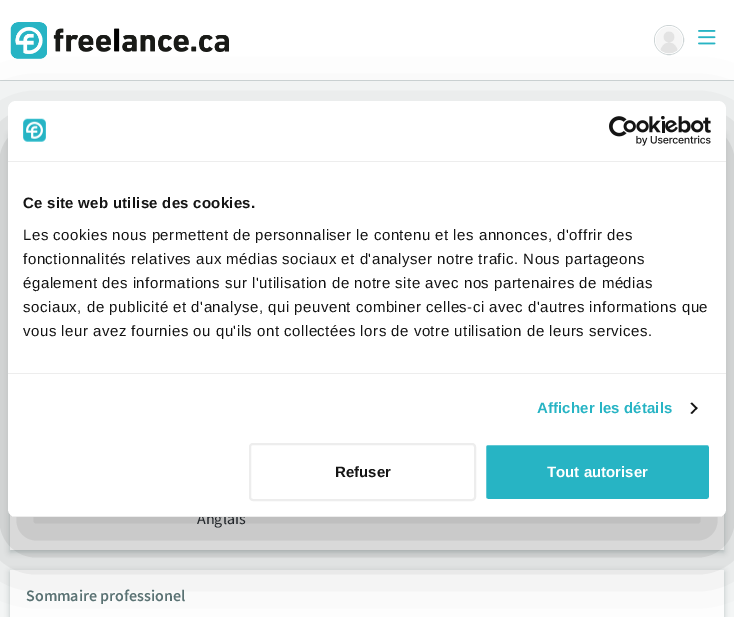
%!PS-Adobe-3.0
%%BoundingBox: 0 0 734 617
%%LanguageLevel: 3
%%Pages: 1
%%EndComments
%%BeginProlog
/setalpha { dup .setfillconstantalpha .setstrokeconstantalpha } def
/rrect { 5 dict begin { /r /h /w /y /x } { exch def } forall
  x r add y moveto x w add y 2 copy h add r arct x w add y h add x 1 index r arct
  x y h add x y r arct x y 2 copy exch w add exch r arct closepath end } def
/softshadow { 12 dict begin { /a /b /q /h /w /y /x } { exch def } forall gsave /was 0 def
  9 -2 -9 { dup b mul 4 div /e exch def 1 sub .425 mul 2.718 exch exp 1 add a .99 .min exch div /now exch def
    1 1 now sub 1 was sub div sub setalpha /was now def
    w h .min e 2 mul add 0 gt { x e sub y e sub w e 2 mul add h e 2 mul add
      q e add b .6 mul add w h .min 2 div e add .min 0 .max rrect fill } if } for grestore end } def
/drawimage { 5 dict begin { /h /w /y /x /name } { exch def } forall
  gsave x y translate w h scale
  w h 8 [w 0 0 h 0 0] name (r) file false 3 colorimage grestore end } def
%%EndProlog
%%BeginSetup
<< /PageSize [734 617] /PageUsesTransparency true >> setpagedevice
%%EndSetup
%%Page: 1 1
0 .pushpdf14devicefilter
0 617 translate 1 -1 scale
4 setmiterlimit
0.965 0.973 0.973 setrgbcolor
0 0 734 617 rectfill
1 setgray
0 0 734 80 rectfill
0.804 0.831 0.835 setrgbcolor
0 80 734 1 rectfill
(images/1.raw) 10 22 219 37 drawimage
newpath 669 40 14.5 0 360 arc closepath stroke
(images/2.raw) 655 26 28 28 drawimage
(images/3.raw) 698 30 18 15 drawimage
0.353 0.447 0.451 setrgbcolor
10 135 714 417 0 3 0.35 softshadow
1 setgray
10 514 714 36 rectfill
0.353 0.447 0.451 setrgbcolor
10 572 714 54 0 3 0.35 softshadow
1 setgray
10 570 714 47 rectfill
0 setgray
8 133 718 416 8 34 0.3 softshadow
/SourceSansPro-Regular [16 0 0 -16 0 0] selectfont
0.129 0.145 0.161 setrgbcolor
197 524 moveto (Anglais) show
1 setgray
8 101 718 416 8 rrect fill
0.153 0.706 0.769 setrgbcolor
485 444 225 56 3 rrect gsave fill grestore
1 setgray
2 setlinewidth
stroke
/LiberationSans-Bold [15 0 0 -15 0 0] selectfont
547 477 moveto (Tout autoriser) show
0.929 setgray
250 444 225 56 3 rrect stroke
0.078 setgray
335 477 moveto (Refuser) show
gsave
8 101 718 416 8 rrect clip newpath
0.929 setgray
8 516 718 1 rectfill
grestore
newpath 692 402.5 moveto 697.5 408 lineto 696.5 409.5 lineto 690.5 403.5 lineto closepath fill
newpath 696.5 407 moveto 697.5 408 lineto 692 414 lineto 690.5 413 lineto closepath fill
/LiberationSans-Regular [15 0 0 -15 0 0] selectfont
23 336 moveto 0.5 0 (vous leur avez fournies ou qu'ils ont collectées lors de votre utilisation de leurs services.) ashow
23 312 moveto 0.5 0 (sociaux, de publicité et d'analyse, qui peuvent combiner celles-ci avec d'autres informations que) ashow
23 288 moveto 0.5 0 (également des informations sur l'utilisation de notre site avec nos partenaires de médias) ashow
23 264 moveto 0.5 0 (fonctionnalités relatives aux médias sociaux et d'analyser notre trafic. Nous partageons) ashow
23 240 moveto 0.5 0 (Les cookies nous permettent de personnaliser le contenu et les annonces, d'offrir des) ashow
/LiberationSans-Bold [15 0 0 -15 0 0] selectfont
23 208 moveto 0.25 0 (Ce site web utilise des cookies.) ashow
0.929 setgray
8 373 718 1 rectfill
0.153 0.706 0.769 setrgbcolor
537 413 moveto 0.1 0 (Afficher les détails) ashow
(images/5.raw) 609 116 102 30 drawimage
(images/4.raw) 23 118 23 24 drawimage
0.929 setgray
8 161 718 1 rectfill
/SourceSansPro-SemiBold [16 0 0 -16 0 0] selectfont
0.353 0.447 0.451 setrgbcolor
26 601 moveto (Sommaire professionel) show
.poppdf14devicefilter showpage
%%EOF
